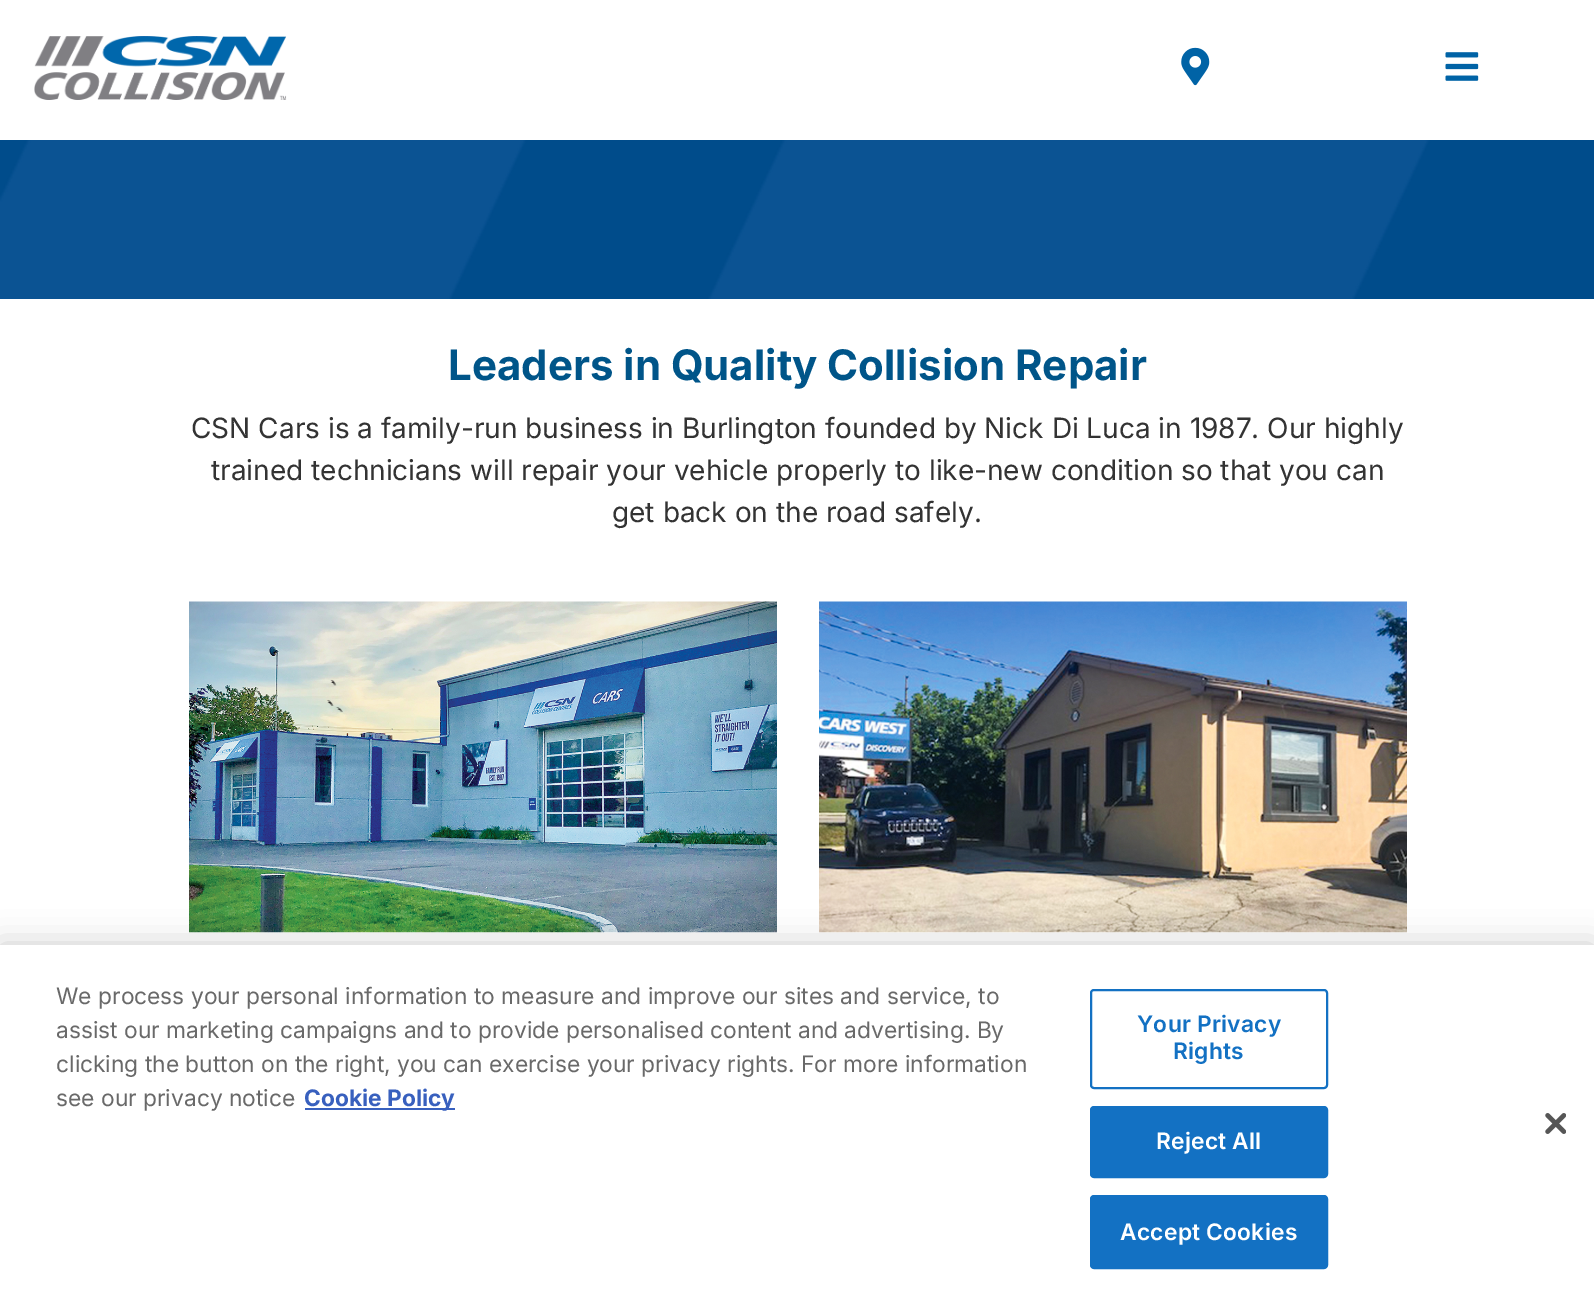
%!PS-Adobe-3.0
%%BoundingBox: 0 0 1594 1303
%%LanguageLevel: 3
%%Pages: 1
%%EndComments
%%BeginProlog
/setalpha { dup .setfillconstantalpha .setstrokeconstantalpha } def
/rrect { 5 dict begin { /r /h /w /y /x } { exch def } forall
  x r add y moveto x w add y 2 copy h add r arct x w add y h add x 1 index r arct
  x y h add x y r arct x y 2 copy exch w add exch r arct closepath end } def
/softshadow { 12 dict begin { /a /b /q /h /w /y /x } { exch def } forall gsave /was 0 def
  9 -2 -9 { dup b mul 4 div /e exch def 1 sub .425 mul 2.718 exch exp 1 add a .99 .min exch div /now exch def
    1 1 now sub 1 was sub div sub setalpha /was now def
    w h .min e 2 mul add 0 gt { x e sub y e sub w e 2 mul add h e 2 mul add
      q e add b .6 mul add w h .min 2 div e add .min 0 .max rrect fill } if } for grestore end } def
/drawimage { 5 dict begin { /h /w /y /x /name } { exch def } forall
  gsave x y translate w h scale
  w h 8 [w 0 0 h 0 0] name (r) file false 3 colorimage grestore end } def
%%EndProlog
%%BeginSetup
<< /PageSize [1594 1303] /PageUsesTransparency true >> setpagedevice
%%EndSetup
%%Page: 1 1
0 .pushpdf14devicefilter
0 1303 translate 1 -1 scale
4 setmiterlimit
0 0.298 0.545 setrgbcolor
0 0 1594 1303 rectfill
(images/1.raw) 0 140 1431 159 drawimage
1 setgray
0 0 1594 140 rectfill
(images/2.raw) 34 36 253 64 drawimage
(images/3.raw) 1181 47 29 39 drawimage
(images/4.raw) 1445 52 34 29 drawimage
0 299 1594 646 rectfill
(images/5.raw) 189 601 588 332 drawimage
(images/6.raw) 819 601 588 332 drawimage
0 setgray
0 945 1594 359 0 16 0.2 softshadow
1 setgray
0 945 1594 358 rectfill
0.22 0.376 0.745 setrgbcolor
305 1108 150 2 rectfill
0.075 0.443 0.765 setrgbcolor
2 setlinewidth
1091 990 236 98 3 rrect stroke
1091 1107 236 70 3 rrect gsave fill grestore
stroke
1091 1196 236 72 3 rrect gsave fill grestore
stroke
(images/7.raw) 1545 1113 21 21 drawimage
/Inter-Bold [42 0 0 -42 0 0] selectfont
0 0.333 0.537 setrgbcolor
448 380 moveto (Leaders in Quality Collision Repair) show
/Inter-Regular [28 0 0 -28 0 0] selectfont
0.2 setgray
191 438 moveto (CSN Cars is a family-run business in Burlington founded by Nick Di Luca in 1987. Our highly) show
211 480 moveto (trained technicians will repair your vehicle properly to like-new condition so that you can) show
612 522 moveto (get back on the road safely.) show
/Inter-Regular [22.75 0 0 -22.75 0 0] selectfont
0.412 setgray
56 1004 moveto (We process your personal information to measure and improve our sites and service, to) show
56 1038 moveto (assist our marketing campaigns and to provide personalised content and advertising. By) show
56 1072 moveto (clicking the button on the right, you can exercise your privacy rights. For more information) show
56 1106 moveto (see our privacy notice) show
/Inter-Bold [22.75 0 0 -22.75 0 0] selectfont
0.22 0.376 0.745 setrgbcolor
304 1106 moveto (Cookie Policy) show
/Inter-SemiBold [22.75 0 0 -22.75 0 0] selectfont
0.075 0.443 0.765 setrgbcolor
1137 1032 moveto 0.25 0 (Your Privacy) ashow
1173 1059 moveto 0.25 0 (Rights) ashow
1 setgray
1156 1149 moveto 0.25 0 (Reject All) ashow
1120 1240 moveto 0.25 0 (Accept Cookies) ashow
.poppdf14devicefilter showpage
%%EOF
